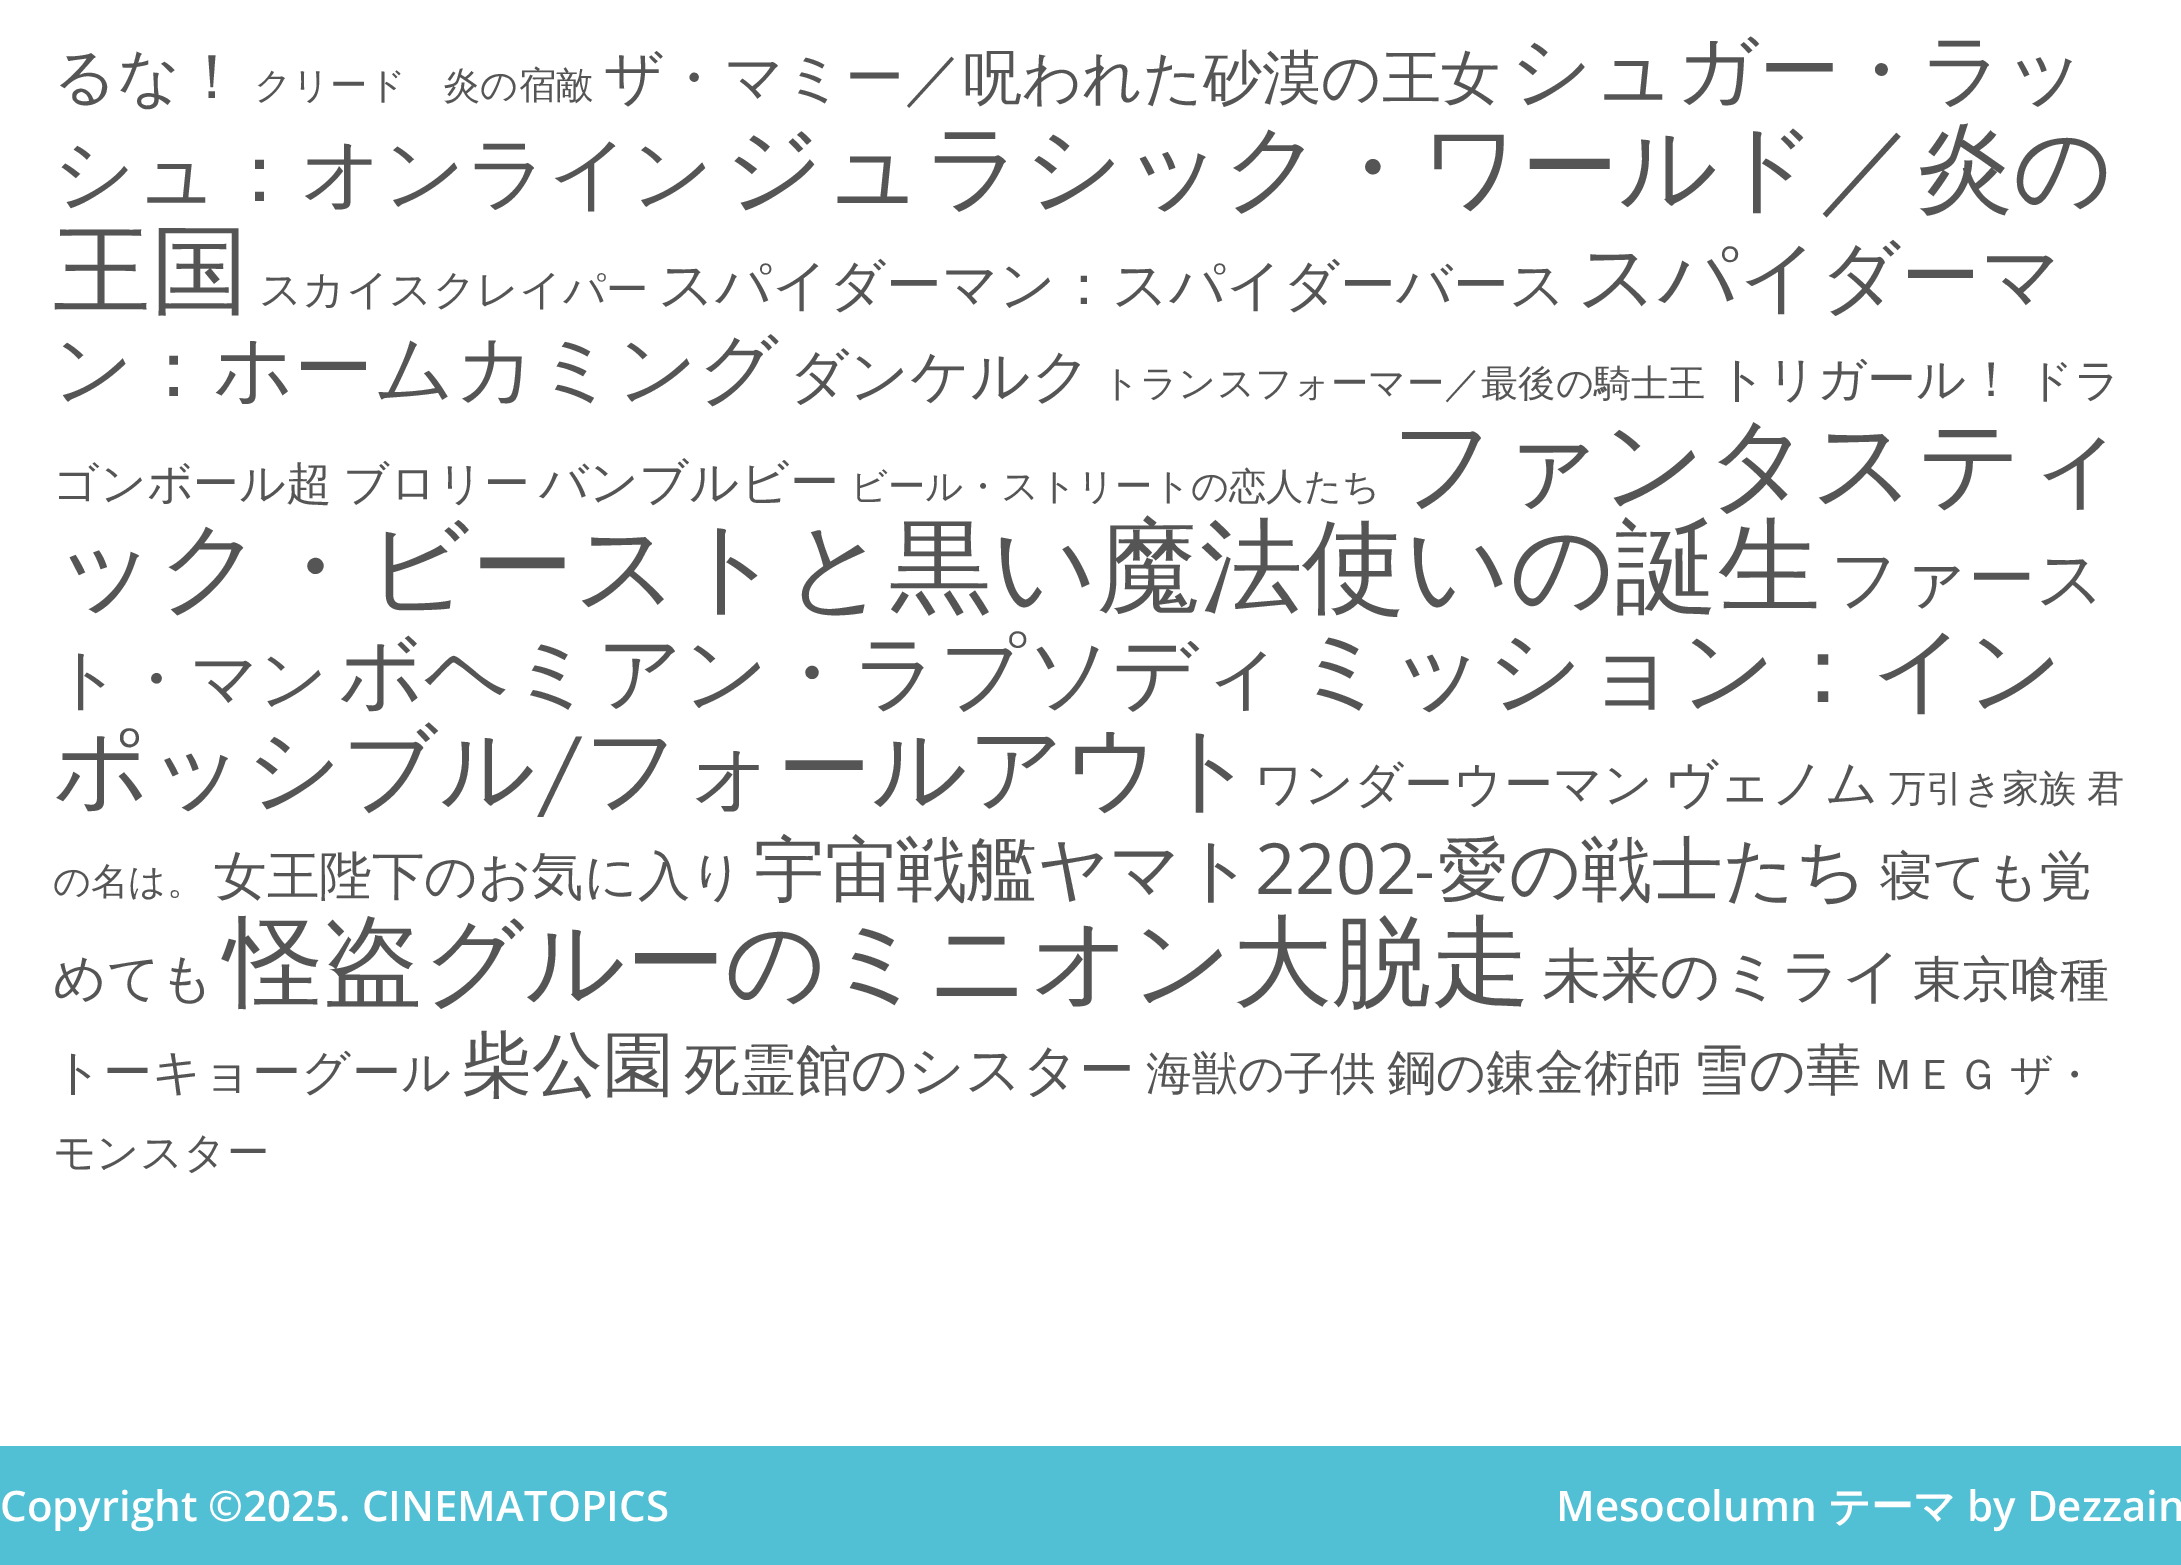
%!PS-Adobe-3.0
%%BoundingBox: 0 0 2181 1565
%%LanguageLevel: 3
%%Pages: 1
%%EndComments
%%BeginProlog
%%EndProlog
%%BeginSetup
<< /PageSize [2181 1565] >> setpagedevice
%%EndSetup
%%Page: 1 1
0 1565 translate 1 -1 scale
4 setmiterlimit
1 setgray
0 0 2181 1565 rectfill
0.322 0.753 0.831 setrgbcolor
0 1446 2181 119 rectfill
/WenQuanYiZenHei-Medium [62.5 0 0 -62.5 0 0] selectfont
0.333 setgray
53 98 moveto (るな！) show
/WenQuanYiZenHei-Medium [37.3 0 0 -37.3 0 0] selectfont
254 98 moveto (クリード　炎の宿敵) show
/WenQuanYiZenHei-Medium [59.1 0 0 -59.1 0 0] selectfont
604 98 moveto (ザ・マミー／呪われた砂漠の王女) show
/WenQuanYiZenHei-Medium [81 0 0 -81 0 0] selectfont
1510 98 moveto (シュガー・ラッ) show
53 201 moveto (シュ：オンライン) show
/WenQuanYiZenHei-Medium [97.6 0 0 -97.6 0 0] selectfont
724 201 moveto (ジュラシック・ワールド／炎の) show
53 304 moveto (王国) show
/WenQuanYiZenHei-Medium [42.4 0 0 -42.4 0 0] selectfont
259 304 moveto (スカイスクレイパー) show
/WenQuanYiZenHei-Medium [55.75 0 0 -55.75 0 0] selectfont
658 304 moveto (スパイダーマン：スパイダーバース) show
/WenQuanYiZenHei-Medium [79.25 0 0 -79.25 0 0] selectfont
1577 304 moveto (スパイダーマ) show
53 396 moveto (ン：ホームカミング) show
/WenQuanYiZenHei-Medium [59.1 0 0 -59.1 0 0] selectfont
789 396 moveto (ダンケルク) show
/WenQuanYiZenHei-Medium [37.3 0 0 -37.3 0 0] selectfont
1102 396 moveto (トランスフォーマー／最後の騎士王) show
/WenQuanYiZenHei-Medium [49 0 0 -49 0 0] selectfont
1717 396 moveto (トリガール！) show
/WenQuanYiZenHei-Medium [45.75 0 0 -45.75 0 0] selectfont
2027 396 moveto (ドラ) show
53 499 moveto -2 0 32 (ゴンボール超 ブロリー) widthshow
/WenQuanYiZenHei-Medium [49 0 0 -49 0 0] selectfont
539 499 moveto (バンブルビー) show
/WenQuanYiZenHei-Medium [37.3 0 0 -37.3 0 0] selectfont
850 499 moveto (ビール・ストリートの恋人たち) show
/WenQuanYiZenHei-Medium [102.7 0 0 -102.7 0 0] selectfont
1391 499 moveto (ファンタスティ) show
53 602 moveto (ック・ビーストと黒い魔法使いの誕生) show
/WenQuanYiZenHei-Medium [67.5 0 0 -67.5 0 0] selectfont
1830 602 moveto (ファース) show
53 702 moveto (ト・マン) show
/WenQuanYiZenHei-Medium [84.25 0 0 -84.25 0 0] selectfont
338 702 moveto (ボヘミアン・ラプソディ) show
/WenQuanYiZenHei-Medium [94.25 0 0 -94.25 0 0] selectfont
1294 702 moveto (ミッション：イン) show
53 801 moveto (ポッシブル/フォールアウト) show
/WenQuanYiZenHei-Medium [49 0 0 -49 0 0] selectfont
1254 801 moveto (ワンダーウーマン) show
/WenQuanYiZenHei-Medium [52.5 0 0 -52.5 0 0] selectfont
1664 801 moveto (ヴェノム) show
/WenQuanYiZenHei-Medium [37.3 0 0 -37.3 0 0] selectfont
1889 801 moveto (万引き家族) show
2087 801 moveto (君) show
53 894 moveto (の名は。) show
/WenQuanYiZenHei-Medium [52.5 0 0 -52.5 0 0] selectfont
214 894 moveto (女王陛下のお気に入り) show
/WenQuanYiZenHei-Medium [70.75 0 0 -70.75 0 0] selectfont
754 894 moveto (宇宙戦艦ヤマト) show
/OpenSans-Regular [70.75 0 0 -70.75 0 0] selectfont
1255 894 moveto (2202) show
/WenQuanYiZenHei-Medium [70.75 0 0 -70.75 0 0] selectfont
1417 894 moveto (-愛の戦士たち) show
/WenQuanYiZenHei-Medium [52.5 0 0 -52.5 0 0] selectfont
1880 894 moveto (寝ても覚) show
53 996 moveto (めても) show
/WenQuanYiZenHei-Medium [99.25 0 0 -99.25 0 0] selectfont
224 996 moveto (怪盗グルーのミニオン大脱走) show
/WenQuanYiZenHei-Medium [59.1 0 0 -59.1 0 0] selectfont
1542 996 moveto (未来のミライ) show
/WenQuanYiZenHei-Medium [49 0 0 -49 0 0] selectfont
1913 996 moveto (東京喰種) show
53 1089 moveto (トーキョーグール) show
/WenQuanYiZenHei-Medium [70.75 0 0 -70.75 0 0] selectfont
461 1089 moveto (柴公園) show
/WenQuanYiZenHei-Medium [55.75 0 0 -55.75 0 0] selectfont
684 1089 moveto (死霊館のシスター) show
/WenQuanYiZenHei-Medium [45.75 0 0 -45.75 0 0] selectfont
1146 1089 moveto (海獣の子供) show
/WenQuanYiZenHei-Medium [49 0 0 -49 0 0] selectfont
1387 1089 moveto (鋼の錬金術師) show
/WenQuanYiZenHei-Medium [55.75 0 0 -55.75 0 0] selectfont
1693 1089 moveto (雪の華) show
/WenQuanYiZenHei-Medium [42.4 0 0 -42.4 0 0] selectfont
1872 1089 moveto -2 0 32 (ＭＥＧ ザ・) widthshow
53 1167 moveto (モンスター) show
/OpenSans-SemiBold [42 0 0 -42 0 0] selectfont
1 setgray
0 1521 moveto (Copyright ©2025. CINEMATOPICS) show
1556 1521 moveto (Mesocolumn) show
/WenQuanYiZenHei-Bold [42 0 0 -42 0 0] selectfont
1828 1521 moveto (テーマ) show
/OpenSans-SemiBold [42 0 0 -42 0 0] selectfont
1967 1521 moveto (by Dezzain) show
showpage
%%EOF
